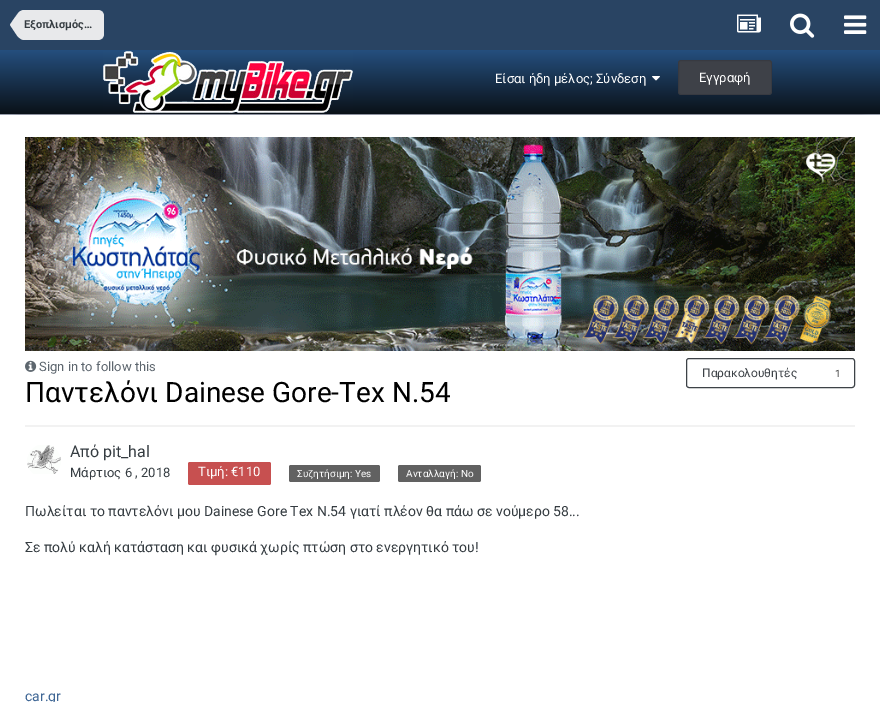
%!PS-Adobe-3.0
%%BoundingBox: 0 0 880 702
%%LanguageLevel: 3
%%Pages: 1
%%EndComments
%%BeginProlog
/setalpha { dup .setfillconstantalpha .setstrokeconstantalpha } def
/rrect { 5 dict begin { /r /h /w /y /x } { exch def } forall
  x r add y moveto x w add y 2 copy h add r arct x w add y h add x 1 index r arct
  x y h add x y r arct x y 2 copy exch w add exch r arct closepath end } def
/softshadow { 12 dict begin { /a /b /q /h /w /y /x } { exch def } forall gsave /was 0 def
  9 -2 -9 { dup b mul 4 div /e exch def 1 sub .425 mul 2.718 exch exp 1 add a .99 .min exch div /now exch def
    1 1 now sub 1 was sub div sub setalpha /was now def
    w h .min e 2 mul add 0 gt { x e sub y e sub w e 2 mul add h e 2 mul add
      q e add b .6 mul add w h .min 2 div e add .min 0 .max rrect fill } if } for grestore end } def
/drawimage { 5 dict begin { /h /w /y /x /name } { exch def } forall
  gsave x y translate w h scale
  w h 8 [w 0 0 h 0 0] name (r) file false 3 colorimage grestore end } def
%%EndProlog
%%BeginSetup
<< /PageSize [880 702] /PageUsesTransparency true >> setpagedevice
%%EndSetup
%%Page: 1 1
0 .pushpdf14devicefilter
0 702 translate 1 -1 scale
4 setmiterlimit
0.588 0.612 0.667 setrgbcolor
0 0 880 702 rectfill
0.161 0.267 0.388 setrgbcolor
0 0 880 50 rectfill
0.91 0.914 0.922 setrgbcolor
newpath 24 10 moveto 98 10 lineto 101.5 10 104 12.5 104 16 curveto 104 34 lineto 104 37.5 101.5 40 98 40 curveto 24 40 lineto closepath fill
newpath 24 25 moveto 24 40 lineto 22 40 19.5 38.5 17 35.5 curveto 10 25 lineto closepath 24 25 moveto 10 25 lineto 10 24 18.5 12.5 19 12 curveto 20.5 11 22 10 24 10 curveto closepath fill
(images/1.raw) 737 14 24 19 drawimage
(images/2.raw) 790 13 25 25 drawimage
(images/3.raw) 844 15 23 19 drawimage
gsave newpath 0 50 moveto 880 50 lineto 880 114 lineto 0 114 lineto closepath clip newpath
<< /ShadingType 2 /ColorSpace /DeviceRGB /Coords [440 50 440 114] /Extend [true true] /Function << /FunctionType 2 /Domain [0 1] /C0 [0.145 0.31 0.494] /C1 [0.039 0.067 0.094] /N 1 >> >> shfill grestore
(images/4.raw) 103 51 250 62 drawimage
(images/5.raw) 652 76 8 5 drawimage
0.243 0.255 0.282 setrgbcolor
678 60 94 35 3 rrect fill
0.1 setalpha
0 setgray
678.5 60.5 93 34 2.5 rrect stroke
1 setalpha
0 116 880 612 20 2 0.3 softshadow
1 setgray
0 115 880 587 rectfill
(images/6.raw) 25 137 830 214 drawimage
(images/7.raw) 25 360 12 12 drawimage
0.239 0.259 0.278 setrgbcolor
686.5 358.5 168 29 2.5 rrect stroke
0.949 setgray
25 425 830 2 rectfill
(images/8.raw) 27 445 34 29 drawimage
0.78 0.314 0.314 setrgbcolor
188 462 83 23 2 rrect fill
0.38 setgray
289 465 91 17 2 rrect fill
398 465 83 17 2 rrect fill
/Roboto-Bold [11 0 0 -11 0 0] selectfont
0.208 0.235 0.255 setrgbcolor
24 28 moveto (Εξοπλισμός…) show
/Roboto-Regular [13 0 0 -13 0 0] selectfont
1 setgray
495 83 moveto (Είσαι ήδη μέλος; Σύνδεση) show
699 82 moveto (Εγγραφή) show
0.365 0.4 0.431 setrgbcolor
39 371 moveto (Sign in to follow this) show
/Roboto-Regular [12 0 0 -12 0 0] selectfont
0.239 0.259 0.278 setrgbcolor
702 377 moveto (Παρακολουθητές) show
/Roboto-Regular [10 0 0 -10 0 0] selectfont
0.2 setgray
835 377 moveto (1) show
/Roboto-Regular [28 0 0 -28 0 0] selectfont
0 setgray
25 402 moveto (Παντελόνι Dainese Gore-Tex N.54) show
/Roboto-Regular [16 0 0 -16 0 0] selectfont
0.208 0.235 0.255 setrgbcolor
70 457 moveto (Από pit_hal) show
/Roboto-Regular [13 0 0 -13 0 0] selectfont
70 477 moveto (Μάρτιος 6 , 2018) show
1 setgray
198 476 moveto (Τιμή: €110) show
/Roboto-Regular [10 0 0 -10 0 0] selectfont
297 477 moveto (Συζητήσιμη: Yes) show
406 477 moveto (Ανταλλαγή: No) show
/Roboto-Regular [14 0 0 -14 0 0] selectfont
0.208 0.235 0.255 setrgbcolor
25 516 moveto (Πωλείται το παντελόνι μου Dainese Gore Tex N.54 γιατί πλέον θα πάω σε νούμερο 58...) show
25 552 moveto (Σε πολύ καλή κατάσταση και φυσικά χωρίς πτώση στο ενεργητικό του!) show
0.239 0.396 0.58 setrgbcolor
25 701 moveto (car.gr) show
.poppdf14devicefilter showpage
%%EOF
